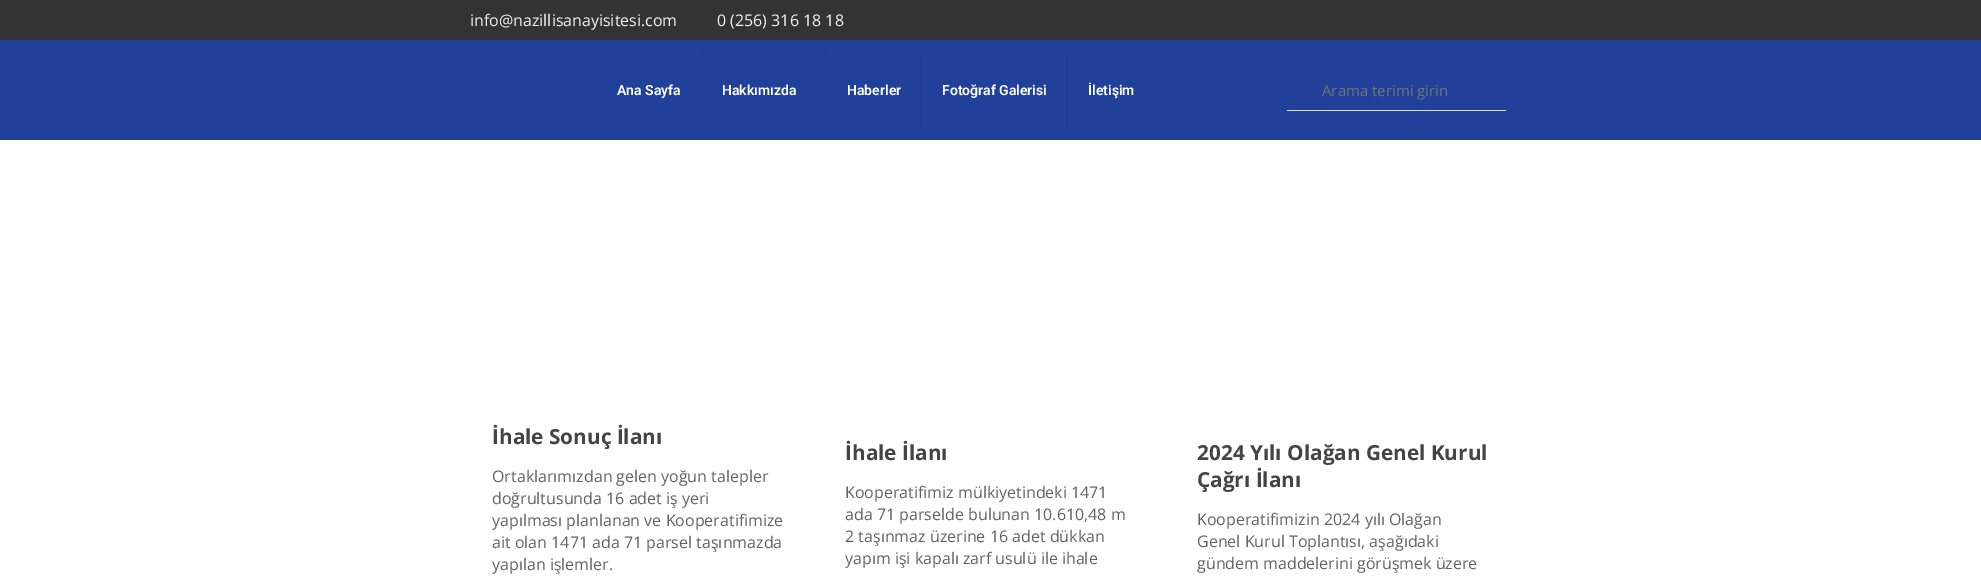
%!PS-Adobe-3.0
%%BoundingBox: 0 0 1981 582
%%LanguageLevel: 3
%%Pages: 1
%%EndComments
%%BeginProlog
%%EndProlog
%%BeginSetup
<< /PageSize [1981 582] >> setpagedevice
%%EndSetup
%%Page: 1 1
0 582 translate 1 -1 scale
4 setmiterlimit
1 setgray
0 0 1981 582 rectfill
0.125 0.251 0.604 setrgbcolor
0 40 1981 100 rectfill
0.2 setgray
0 0 1981 40 rectfill
0.118 0.239 0.573 setrgbcolor
701 50 1 80 rectfill
826 50 1 80 rectfill
921 50 1 80 rectfill
1067 50 1 80 rectfill
0.867 setgray
1287 110 219 1 rectfill
/OpenSans-Regular [16 0 0 -16 0 0] selectfont
0.949 setgray
470 26 moveto (info@nazillisanayisitesi.com) show
717 26 moveto (0 \(256\) 316 18 18) show
/Roboto-SemiBold [14 0 0 -14 0 0] selectfont
1 setgray
617 95 moveto (Ana Sayfa) show
722 95 moveto (Hakkımızda) show
847 95 moveto (Haberler) show
942 95 moveto (Fotoğraf Galerisi) show
1088 95 moveto (İletişim) show
/OpenSans-Regular [15 0 0 -15 0 0] selectfont
0.459 setgray
1322 96 moveto (Arama terimi girin) show
/OpenSans-Bold [20.75 0 0 -20.75 0 0] selectfont
0.267 setgray
492 444 moveto (İhale Sonuç İlanı) show
/OpenSans-Regular [16 0 0 -16 0 0] selectfont
0.384 setgray
492 482 moveto (Ortaklarımızdan gelen yoğun talepler) show
492 504 moveto (doğrultusunda 16 adet iş yeri) show
492 526 moveto (yapılması planlanan ve Kooperatifimize) show
492 548 moveto (ait olan 1471 ada 71 parsel taşınmazda) show
492 570 moveto (yapılan işlemler.) show
/OpenSans-Bold [20.75 0 0 -20.75 0 0] selectfont
0.267 setgray
845 460 moveto (İhale İlanı) show
/OpenSans-Regular [16 0 0 -16 0 0] selectfont
0.384 setgray
845 498 moveto (Kooperatifimiz mülkiyetindeki 1471) show
845 520 moveto (ada 71 parselde bulunan 10.610,48 m) show
845 542 moveto (2 taşınmaz üzerine 16 adet dükkan) show
845 564 moveto (yapım işi kapalı zarf usulü ile ihale) show
/OpenSans-Bold [20.75 0 0 -20.75 0 0] selectfont
0.267 setgray
1197 460 moveto (2024 Yılı Olağan Genel Kurul) show
1197 487 moveto (Çağrı İlanı) show
/OpenSans-Regular [16 0 0 -16 0 0] selectfont
0.384 setgray
1197 525 moveto (Kooperatifimizin 2024 yılı Olağan) show
1197 547 moveto (Genel Kurul Toplantısı, aşağıdaki) show
1197 569 moveto (gündem maddelerini görüşmek üzere) show
showpage
%%EOF
